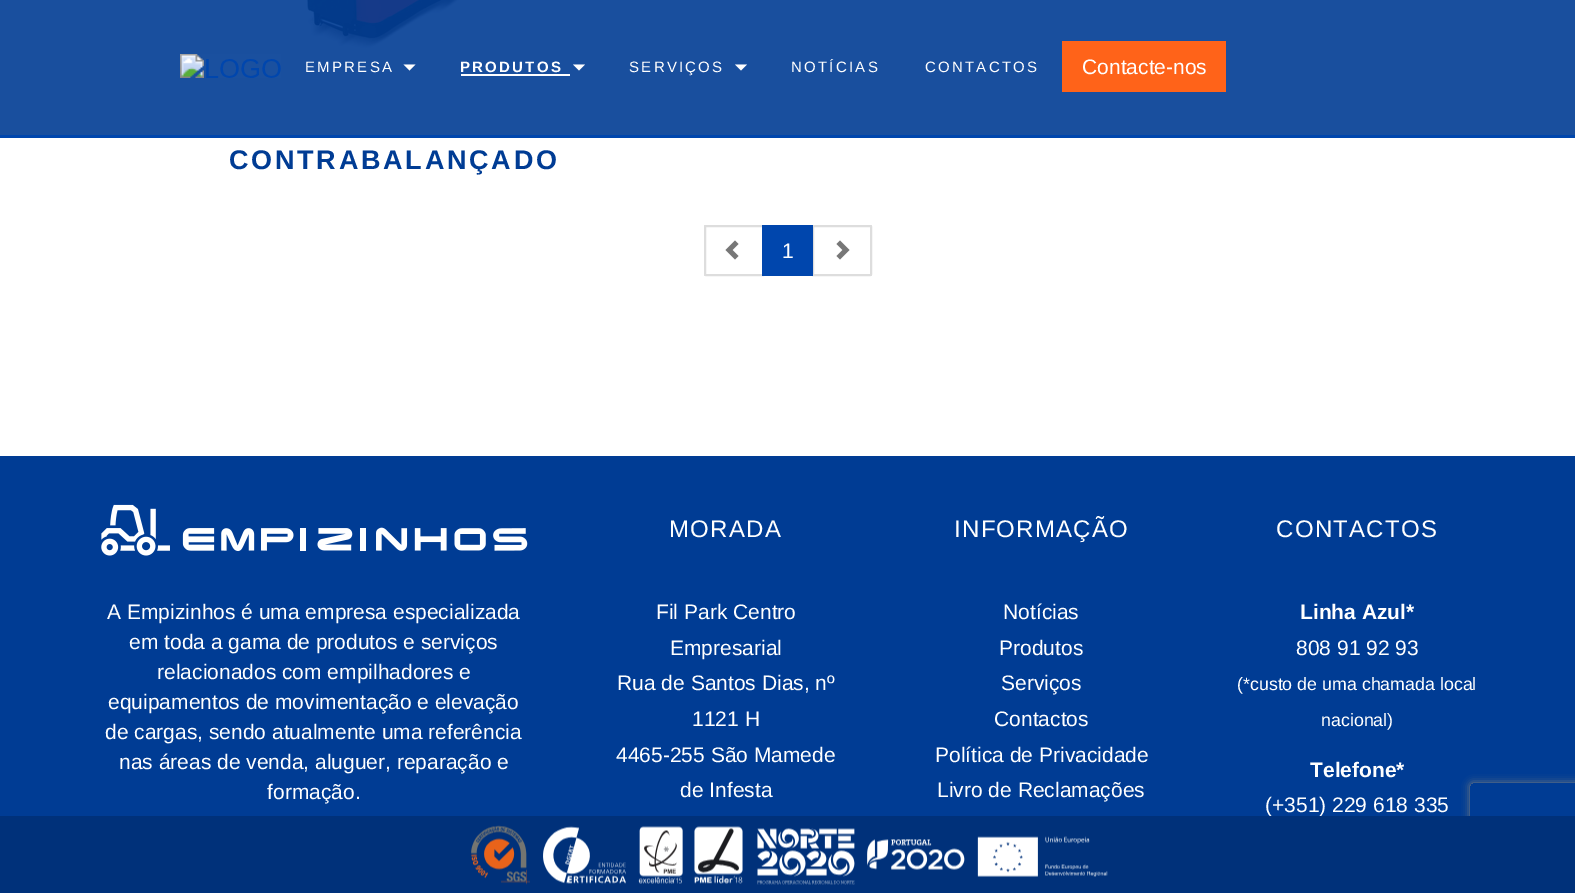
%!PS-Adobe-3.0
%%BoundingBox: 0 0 1575 893
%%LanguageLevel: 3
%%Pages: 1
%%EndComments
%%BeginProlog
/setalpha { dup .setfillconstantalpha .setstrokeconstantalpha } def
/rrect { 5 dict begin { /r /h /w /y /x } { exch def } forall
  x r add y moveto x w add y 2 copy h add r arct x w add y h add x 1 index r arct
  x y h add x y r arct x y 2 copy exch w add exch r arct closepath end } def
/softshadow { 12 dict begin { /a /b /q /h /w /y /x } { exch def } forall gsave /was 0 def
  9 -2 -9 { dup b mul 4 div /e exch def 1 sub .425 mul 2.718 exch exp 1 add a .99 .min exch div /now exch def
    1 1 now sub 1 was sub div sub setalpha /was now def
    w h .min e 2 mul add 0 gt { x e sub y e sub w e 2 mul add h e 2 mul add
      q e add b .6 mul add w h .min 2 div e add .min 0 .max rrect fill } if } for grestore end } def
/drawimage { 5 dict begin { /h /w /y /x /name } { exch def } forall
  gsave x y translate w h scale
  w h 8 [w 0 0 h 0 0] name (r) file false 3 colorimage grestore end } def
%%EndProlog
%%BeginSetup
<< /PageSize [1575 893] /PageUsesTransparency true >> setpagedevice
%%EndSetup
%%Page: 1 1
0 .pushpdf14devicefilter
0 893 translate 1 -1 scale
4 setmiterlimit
1 setgray
0 0 1575 893 rectfill
(images/2.raw) 307 0 152 49 drawimage
0.9 setalpha
0 0.235 0.58 setrgbcolor
0 0 1575 135 rectfill
1 setalpha
0 0.275 0.678 setrgbcolor
0 135 1575 3 rectfill
(images/1.raw) 180 54 101 24 drawimage
1 setgray
newpath 403.5 64.5 moveto 415.5 64.5 lineto 409.5 70.5 lineto closepath fill
461 74 109 2 rectfill
newpath 573 64.5 moveto 585 64.5 lineto 579 70.5 lineto closepath fill
newpath 735 64.5 moveto 747 64.5 lineto 741 70.5 lineto closepath fill
1 0.388 0.098 setrgbcolor
1062 41 164 51 rectfill
0.867 setgray
2 setlinewidth
newpath 705.5 226 moveto 763 226 lineto 763 275 lineto 705.5 275 lineto 705 275 705 275 705 274.5 curveto 705 226.5 lineto 705 226 705 226 705.5 226 curveto closepath stroke
0.467 setgray
newpath 738.5 244 moveto 732.5 250 lineto 738.5 256 lineto 735 259.5 lineto 725.5 250 lineto 735 240.5 lineto closepath fill
0.867 setgray
newpath 813 226 moveto 870.5 226 lineto 871 226 871 226 871 226.5 curveto 871 274.5 lineto 871 275 871 275 870.5 275 curveto 813 275 lineto closepath stroke
0 0.275 0.678 setrgbcolor
762 225 51 51 rectfill
0.467 setgray
newpath 849.5 250 moveto 840 259.5 lineto 836.5 256 lineto 842.5 250 lineto 836.5 244 lineto 840 240.5 lineto closepath fill
0 0.235 0.58 setrgbcolor
0 456 1575 360 rectfill
(images/3.raw) 101 504 427 52 drawimage
gsave
newpath 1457 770 moveto 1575 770 lineto 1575 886 lineto 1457 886 lineto closepath 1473 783 moveto 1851 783 lineto 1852.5 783 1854 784.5 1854 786 curveto 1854 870 lineto 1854 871.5 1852.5 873 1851 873 curveto 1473 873 lineto 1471.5 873 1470 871.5 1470 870 curveto 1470 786 lineto 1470 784.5 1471.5 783 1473 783 curveto closepath eoclip newpath
0.502 setgray
1470 783 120 90 3 4 1 softshadow
grestore
/LiberationSans-Regular [15 0 0 -15 0 0] selectfont
1 setgray
305 72 moveto 2.25 0 (EMPRESA) ashow
/LiberationSans-Bold [15 0 0 -15 0 0] selectfont
460 72 moveto 2.25 0 (PRODUTOS) ashow
/LiberationSans-Regular [15 0 0 -15 0 0] selectfont
629 72 moveto 2.25 0 (SERVIÇOS) ashow
791 72 moveto 2.25 0 (NOTÍCIAS) ashow
925 72 moveto 2.25 0 (CONTACTOS) ashow
/LiberationSans-Regular [21 0 0 -21 0 0] selectfont
1082 74 moveto (Contacte-nos) show
/LiberationSans-Bold [27 0 0 -27 0 0] selectfont
0 0.235 0.58 setrgbcolor
229 169 moveto 2.75 0 (CONTRABALANÇADO) ashow
/LiberationSans-Regular [21 0 0 -21 0 0] selectfont
1 setgray
782 258 moveto (1) show
107 619 moveto (A Empizinhos é uma empresa especializada) show
129 649 moveto (em toda a gama de produtos e serviços) show
157 679 moveto (relacionados com empilhadores e) show
108 709 moveto (equipamentos de movimentação e elevação) show
105 739 moveto (de cargas, sendo atualmente uma referência) show
119 769 moveto (nas áreas de venda, aluguer, reparação e) show
267 799 moveto (formação.) show
/LiberationSans-Regular [24 0 0 -24 0 0] selectfont
669 537 moveto 1.25 0 (MORADA) ashow
/LiberationSans-Regular [21 0 0 -21 0 0] selectfont
656 619 moveto (Fil Park Centro) show
670 655 moveto (Empresarial) show
617 690 moveto (Rua de Santos Dias, nº) show
692 726 moveto (1121 H) show
616 762 moveto (4465-255 São Mamede) show
680 797 moveto (de Infesta) show
/LiberationSans-Regular [24 0 0 -24 0 0] selectfont
954 537 moveto 1.25 0 (INFORMAÇÃO) ashow
/LiberationSans-Regular [21 0 0 -21 0 0] selectfont
1003 619 moveto (Notícias) show
999 655 moveto (Produtos) show
1001 690 moveto (Serviços) show
994 726 moveto (Contactos) show
935 762 moveto (Política de Privacidade) show
937 797 moveto (Livro de Reclamações) show
/LiberationSans-Regular [24 0 0 -24 0 0] selectfont
1276 537 moveto 1.25 0 (CONTACTOS) ashow
/LiberationSans-Bold [21 0 0 -21 0 0] selectfont
1300 619 moveto (Linha Azul*) show
/LiberationSans-Regular [21 0 0 -21 0 0] selectfont
1296 655 moveto (808 91 92 93) show
/LiberationSans-Regular [17.8 0 0 -17.8 0 0] selectfont
1237 690 moveto (\(*custo de uma chamada local) show
1321 726 moveto (nacional\)) show
/LiberationSans-Bold [21 0 0 -21 0 0] selectfont
1310 777 moveto (Telefone*) show
/LiberationSans-Regular [21 0 0 -21 0 0] selectfont
1265 812 moveto (\(+351\) 229 618 335) show
0 0.192 0.478 setrgbcolor
0 816 1575 77 rectfill
(images/4.raw) 471 825 59 60 drawimage
(images/5.raw) 543 826 83 58 drawimage
(images/6.raw) 638 826 45 58 drawimage
(images/7.raw) 694 826 49 58 drawimage
(images/8.raw) 757 828 98 57 drawimage
(images/9.raw) 867 839 98 31 drawimage
(images/10.raw) 977 836 131 41 drawimage
.poppdf14devicefilter showpage
%%EOF
